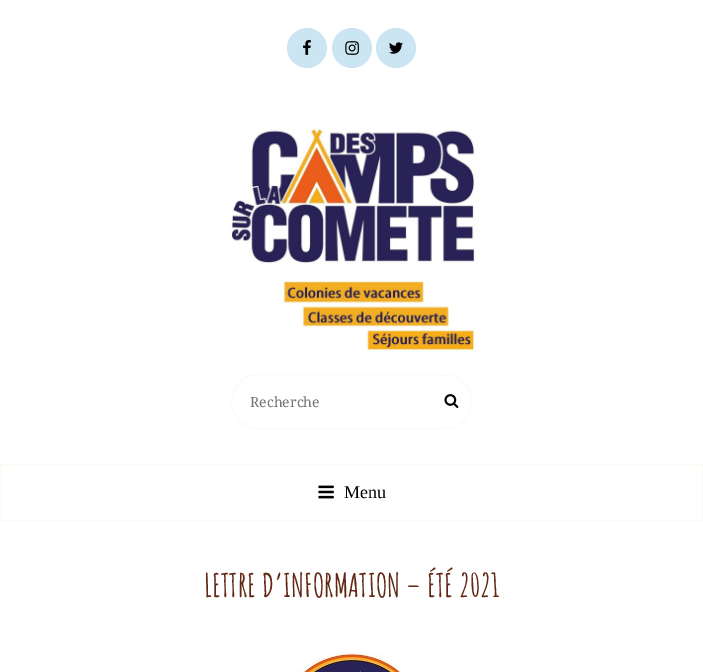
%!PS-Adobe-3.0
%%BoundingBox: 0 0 703 672
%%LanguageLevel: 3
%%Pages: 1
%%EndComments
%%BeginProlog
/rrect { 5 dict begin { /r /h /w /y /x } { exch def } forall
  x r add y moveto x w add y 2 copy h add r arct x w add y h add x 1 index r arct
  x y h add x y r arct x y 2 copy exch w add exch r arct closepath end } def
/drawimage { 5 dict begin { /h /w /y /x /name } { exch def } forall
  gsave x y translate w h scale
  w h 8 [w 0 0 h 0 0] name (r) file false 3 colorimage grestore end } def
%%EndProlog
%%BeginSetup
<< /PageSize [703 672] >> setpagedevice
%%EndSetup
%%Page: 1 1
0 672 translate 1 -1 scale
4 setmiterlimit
1 setgray
0 0 703 672 rectfill
0.796 0.902 0.949 setrgbcolor
newpath 307 48 20 0 360 arc closepath fill
(images/1.raw) 303 40 8 15 drawimage
newpath 352 48 20 0 360 arc closepath fill
(images/2.raw) 345 41 14 14 drawimage
newpath 396 48 20 0 360 arc closepath fill
(images/3.raw) 389 42 14 12 drawimage
(images/4.raw) 230 127 246 224 drawimage
0.996 0.976 0.953 setrgbcolor
231.5 374.5 240 54 27 rrect stroke
(images/5.raw) 444 394 15 14 drawimage
0.5 464.5 702 56 rectstroke
(images/6.raw) 318 485 16 14 drawimage
(images/7.raw) 295 653 126 19 drawimage
/NotoSerif-Regular [14 0 0 -14 0 0] selectfont
0.459 setgray
250 407 moveto (Recherche) show
/LiberationSerif-Regular [18 0 0 -18 0 0] selectfont
0 setgray
344 498 moveto (Menu) show
/AmaticSC-Bold [32 0 0 -32 0 0] selectfont
0.384 0.165 0.078 setrgbcolor
204 597 moveto (LETTRE D’INFORMATION – ÉTÉ 2021) show
showpage
%%EOF
